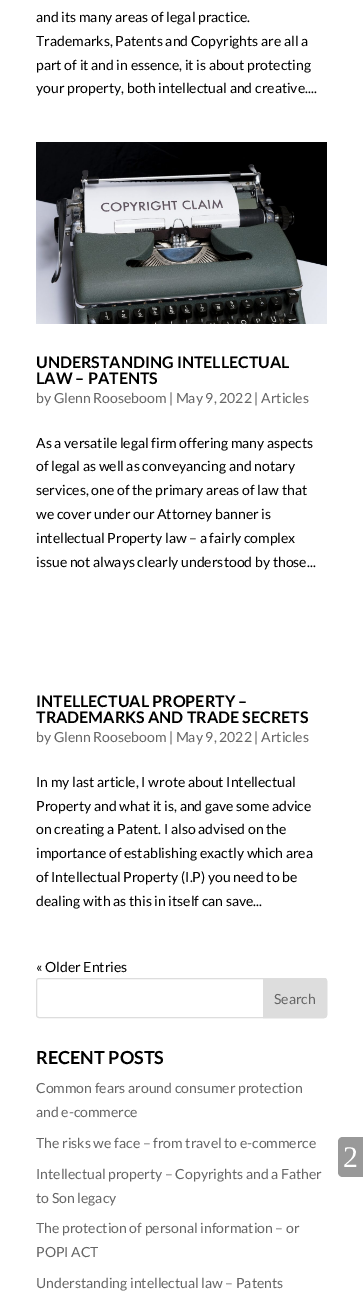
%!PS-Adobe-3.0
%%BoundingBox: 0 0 363 1302
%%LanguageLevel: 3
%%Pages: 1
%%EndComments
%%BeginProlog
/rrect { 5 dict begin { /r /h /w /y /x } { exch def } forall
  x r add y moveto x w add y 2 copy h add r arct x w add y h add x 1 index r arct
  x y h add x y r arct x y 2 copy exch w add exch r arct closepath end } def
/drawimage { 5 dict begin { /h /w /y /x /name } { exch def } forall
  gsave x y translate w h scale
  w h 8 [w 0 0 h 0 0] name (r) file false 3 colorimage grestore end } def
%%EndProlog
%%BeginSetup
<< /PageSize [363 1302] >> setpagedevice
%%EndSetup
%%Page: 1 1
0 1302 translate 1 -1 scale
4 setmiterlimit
1 setgray
0 0 363 1302 rectfill
(images/1.raw) 36 142 291 182 drawimage
0.867 setgray
36.5 978.5 290 39 2.5 rrect stroke
newpath 263.5 978.5 moveto 324 978.5 lineto 325.5 978.5 326.5 979.5 326.5 981 curveto 326.5 1015 lineto 326.5 1016.5 325.5 1017.5 324 1017.5 curveto 263.5 1017.5 lineto closepath gsave fill grestore
stroke
0.6 setgray
newpath 343 1137 moveto 363 1137 lineto 363 1177 lineto 343 1177 lineto 340 1177 338 1175 338 1172 curveto 338 1142 lineto 338 1139 340 1137 343 1137 curveto closepath fill
/Lato-Regular [14 0 0 -14 0 0] selectfont
0 setgray
36 22 moveto (and its many areas of legal practice.) show
36 46 moveto (Trademarks, Patents and Copyrights are all a) show
36 70 moveto (part of it and in essence, it is about protecting) show
36 93 moveto (your property, both intellectual and creative....) show
/Lato-Bold [16 0 0 -16 0 0] selectfont
36 368 moveto (UNDERSTANDING INTELLECTUAL) show
36 384 moveto (LAW – PATENTS) show
/Lato-Regular [14 0 0 -14 0 0] selectfont
0.4 setgray
36 403 moveto (by Glenn Rooseboom | May 9, 2022 | Articles) show
0 setgray
36 448 moveto (As a versatile legal firm offering many aspects) show
36 471 moveto (of legal as well as conveyancing and notary) show
36 495 moveto (services, one of the primary areas of law that) show
36 519 moveto (we cover under our Attorney banner is) show
36 543 moveto (intellectual Property law – a fairly complex) show
36 567 moveto (issue not always clearly understood by those...) show
/Lato-Bold [16 0 0 -16 0 0] selectfont
36 707 moveto (INTELLECTUAL PROPERTY –) show
36 723 moveto (TRADEMARKS AND TRADE SECRETS) show
/Lato-Regular [14 0 0 -14 0 0] selectfont
0.4 setgray
36 742 moveto (by Glenn Rooseboom | May 9, 2022 | Articles) show
0 setgray
36 787 moveto (In my last article, I wrote about Intellectual) show
36 811 moveto (Property and what it is, and gave some advice) show
36 834 moveto (on creating a Patent. I also advised on the) show
36 858 moveto (importance of establishing exactly which area) show
36 882 moveto (of Intellectual Property \(I.P\) you need to be) show
36 906 moveto (dealing with as this in itself can save...) show
36 972 moveto (« Older Entries) show
0.4 setgray
274 1004 moveto (Search) show
/Lato-Bold [18 0 0 -18 0 0] selectfont
0 setgray
36 1064 moveto (RECENT POSTS) show
/Lato-Regular [14 0 0 -14 0 0] selectfont
0.4 setgray
36 1093 moveto (Common fears around consumer protection) show
36 1117 moveto (and e-commerce) show
36 1148 moveto (The risks we face – from travel to e-commerce) show
36 1179 moveto (Intellectual property – Copyrights and a Father) show
36 1203 moveto (to Son legacy) show
36 1233 moveto (The protection of personal information – or) show
36 1257 moveto (POPI ACT) show
36 1288 moveto (Understanding intellectual law – Patents) show
/LiberationSerif-Regular [30 0 0 -30 0 0] selectfont
1 setgray
343 1167 moveto (2) show
showpage
%%EOF
